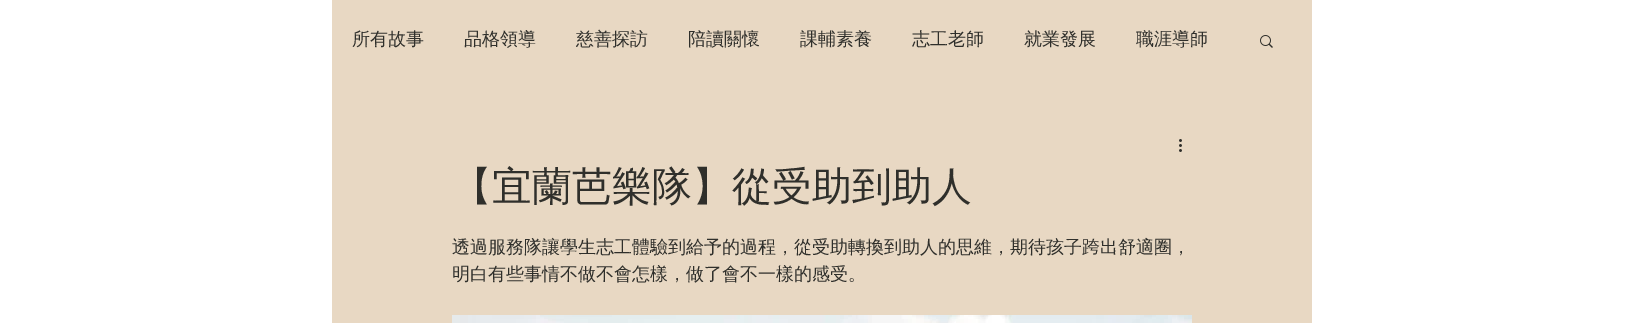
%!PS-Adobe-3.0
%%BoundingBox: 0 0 1644 323
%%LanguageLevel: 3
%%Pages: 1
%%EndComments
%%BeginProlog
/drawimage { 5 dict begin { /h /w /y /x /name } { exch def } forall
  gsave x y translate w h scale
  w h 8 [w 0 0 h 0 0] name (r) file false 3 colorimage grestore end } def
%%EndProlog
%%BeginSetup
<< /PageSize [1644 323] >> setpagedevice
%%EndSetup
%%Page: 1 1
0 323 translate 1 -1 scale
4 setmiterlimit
1 setgray
0 0 1644 323 rectfill
0.91 0.847 0.765 setrgbcolor
332 0 980 323 rectfill
(images/1.raw) 1260 35 13 13 drawimage
(images/2.raw) 1179 139 3 13 drawimage
(images/3.raw) 452 315 740 8 drawimage
/WenQuanYiZenHei-Medium [18 0 0 -18 0 0] selectfont
0.184 0.184 0.169 setrgbcolor
352 45 moveto (所有故事) show
464 45 moveto (品格領導) show
576 45 moveto (慈善探訪) show
688 45 moveto (陪讀關懷) show
800 45 moveto (課輔素養) show
912 45 moveto (志工老師) show
1024 45 moveto (就業發展) show
1136 45 moveto (職涯導師) show
/WenQuanYiZenHei-Medium [40 0 0 -40 0 0] selectfont
452 200 moveto (【宜蘭芭樂隊】從受助到助人) show
/WenQuanYiZenHei-Medium [18 0 0 -18 0 0] selectfont
452 253 moveto (透過服務隊讓學生志工體驗到給予的過程，從受助轉換到助人的思維，期待孩子跨出舒適圈，) show
452 280 moveto (明白有些事情不做不會怎樣，做了會不一樣的感受。) show
showpage
%%EOF
